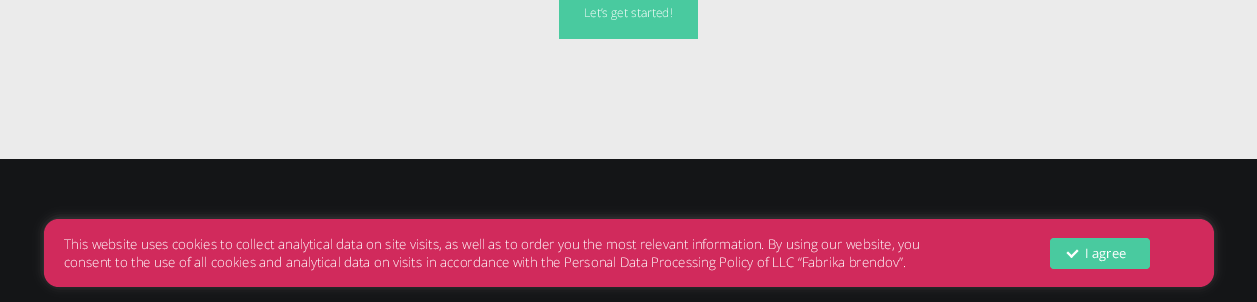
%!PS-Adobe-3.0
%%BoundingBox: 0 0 1257 302
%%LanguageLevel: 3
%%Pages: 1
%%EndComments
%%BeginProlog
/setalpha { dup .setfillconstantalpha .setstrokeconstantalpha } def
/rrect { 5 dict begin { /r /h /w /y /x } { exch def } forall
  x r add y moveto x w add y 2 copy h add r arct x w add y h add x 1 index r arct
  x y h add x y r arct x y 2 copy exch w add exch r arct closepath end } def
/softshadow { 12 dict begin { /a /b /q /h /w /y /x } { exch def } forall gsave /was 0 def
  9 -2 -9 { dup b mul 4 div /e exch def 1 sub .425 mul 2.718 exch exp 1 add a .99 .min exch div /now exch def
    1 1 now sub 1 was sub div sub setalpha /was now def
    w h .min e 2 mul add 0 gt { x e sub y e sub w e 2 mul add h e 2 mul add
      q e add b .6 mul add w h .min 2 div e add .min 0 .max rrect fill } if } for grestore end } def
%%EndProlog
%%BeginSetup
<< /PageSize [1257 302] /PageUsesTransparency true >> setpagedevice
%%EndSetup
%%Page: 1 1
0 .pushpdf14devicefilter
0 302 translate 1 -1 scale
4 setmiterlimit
0.922 setgray
0 0 1257 302 rectfill
0.286 0.792 0.624 setrgbcolor
559 0 139 39 rectfill
0.078 0.082 0.09 setrgbcolor
0 159 1257 143 rectfill
0.675 0.671 0.671 setrgbcolor
44 218 1170 68 15 5 0.3 softshadow
0.82 0.165 0.361 setrgbcolor
44 219 1170 68 15 rrect fill
0.286 0.792 0.624 setrgbcolor
1050 238 100 31 4 rrect fill
1 setgray
newpath 1070 256.5 moveto 1077 249.5 lineto 1078.5 251 lineto 1071.5 258 lineto closepath fill
newpath 1066.5 253 moveto 1068 251.5 lineto 1073 256.5 lineto 1071.5 258 lineto closepath fill
/OpenSans-Light [12 0 0 -12 0 0] selectfont
584 17 moveto (Let’s get started!) show
/OpenSans-Light [13.33 0 0 -13.33 0 0] selectfont
64 249 moveto (This website uses cookies to collect analytical data on site visits, as well as to order you the most relevant information. By using our website, you) show
64 267 moveto (consent to the use of all cookies and analytical data on visits in accordance with the Personal Data Processing Policy of LLC “Fabrika brendov”.) show
/OpenSans-Regular [13 0 0 -13 0 0] selectfont
1085 258 moveto (I agree) show
.poppdf14devicefilter showpage
%%EOF
